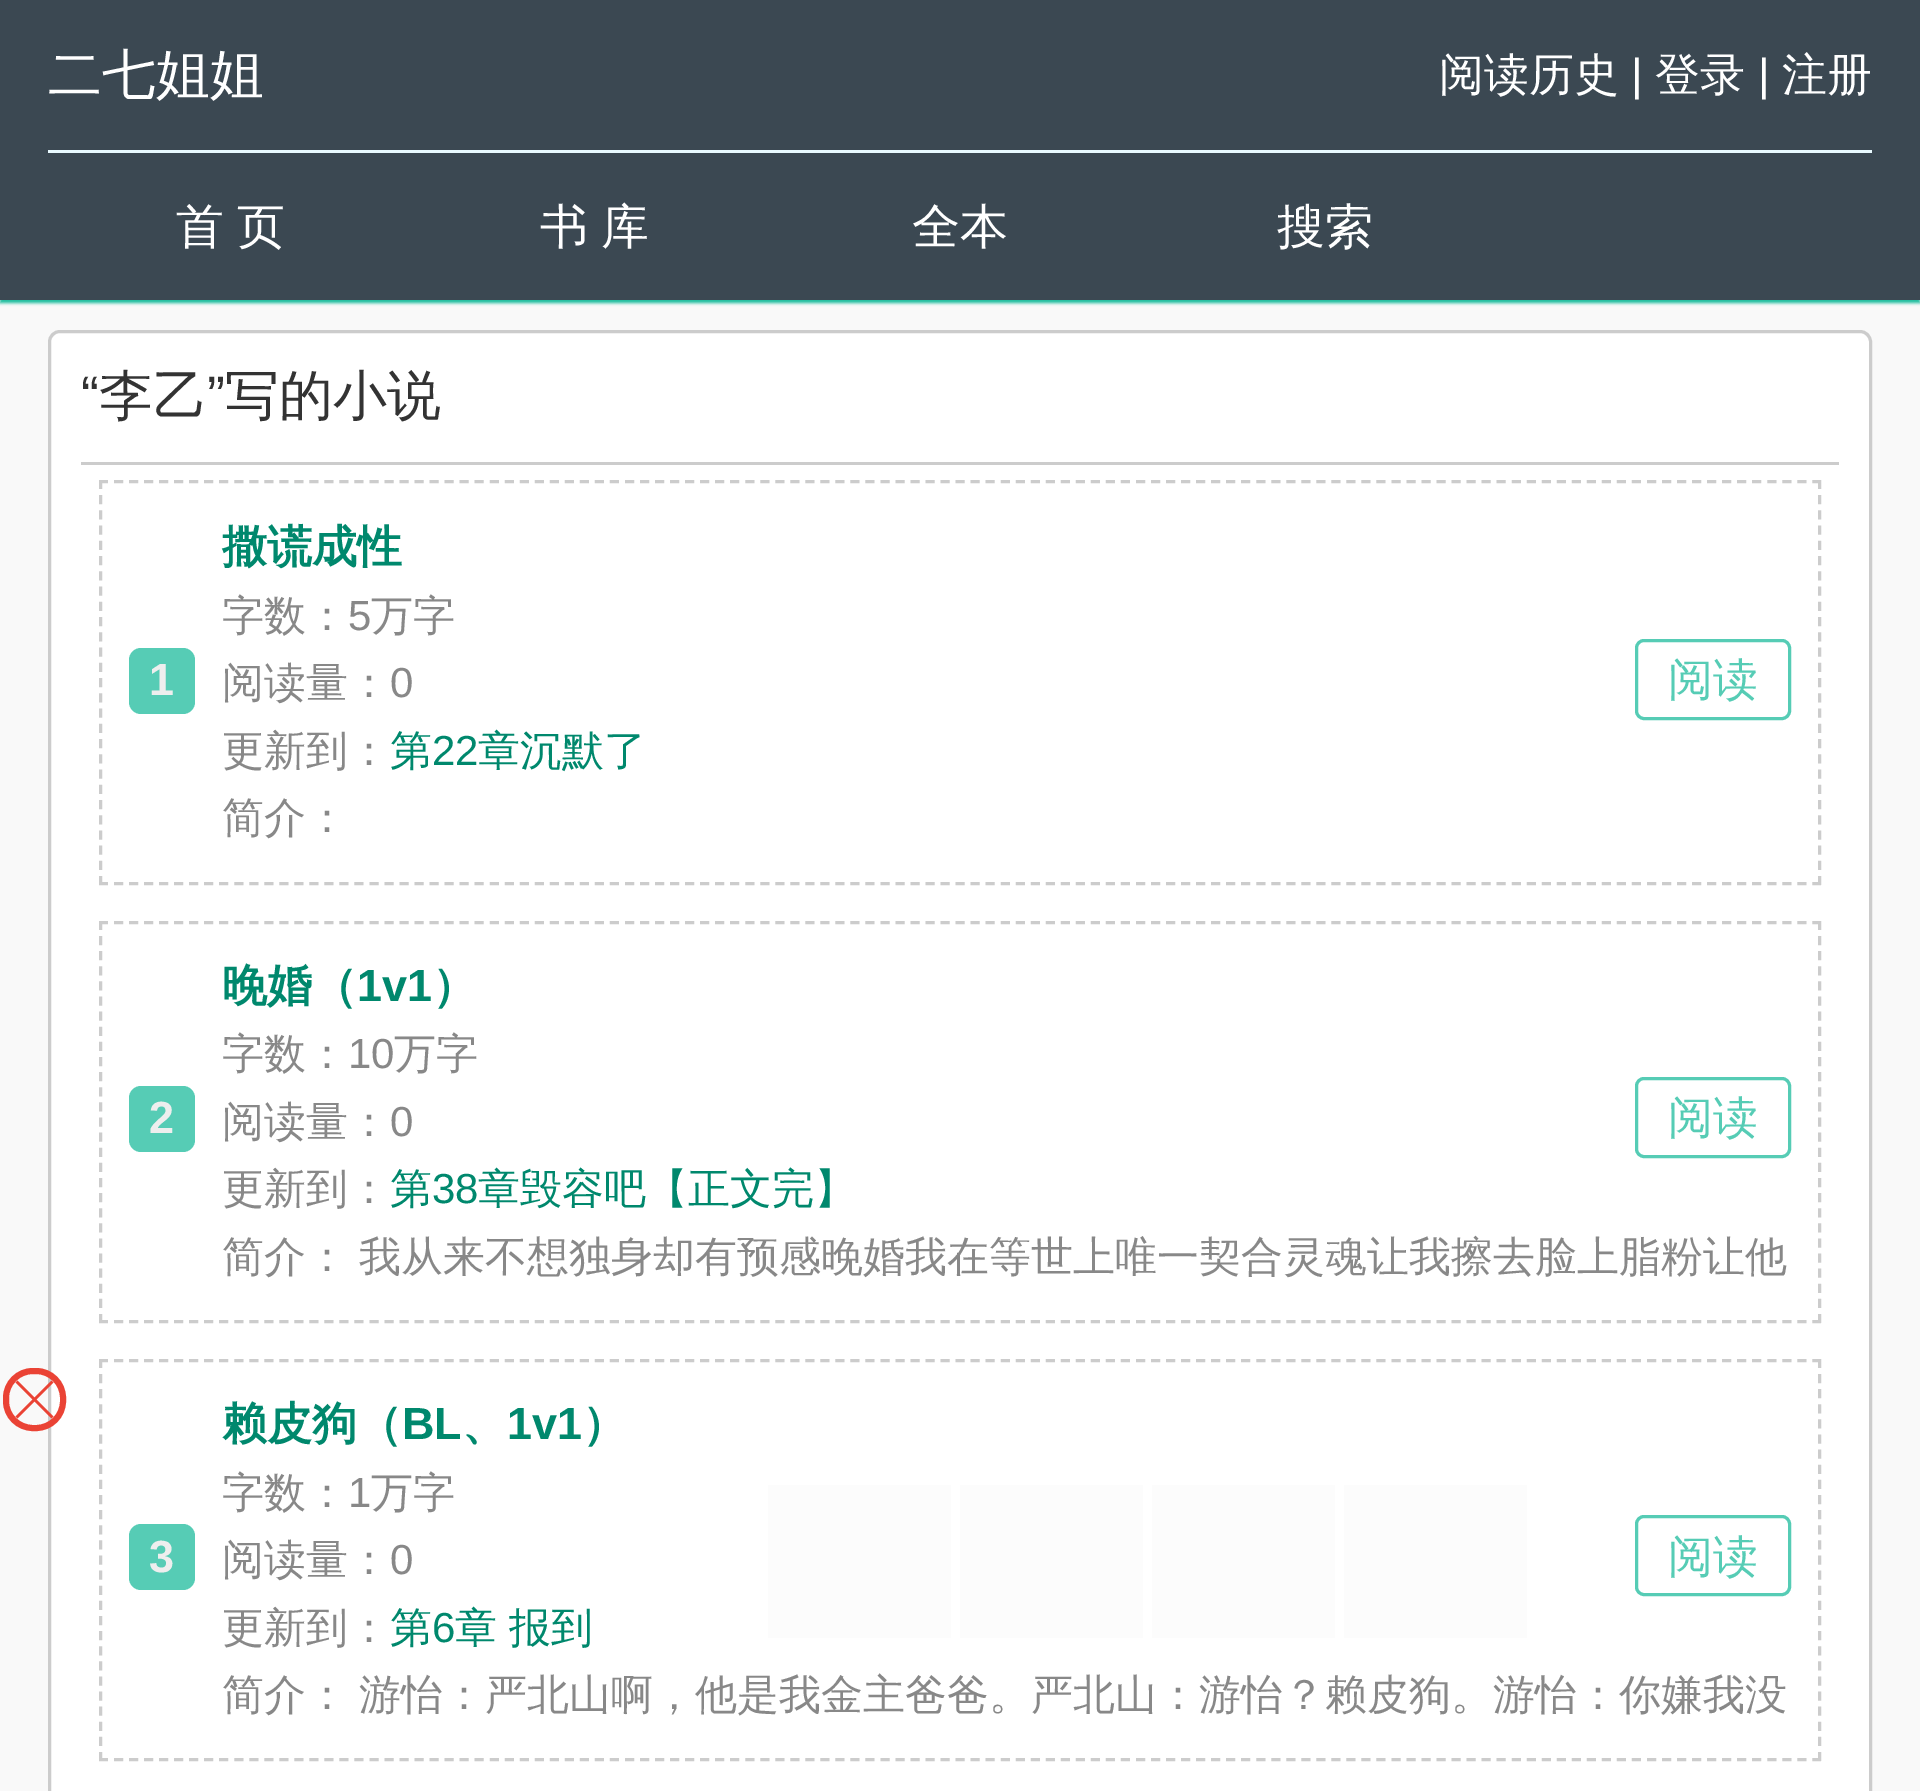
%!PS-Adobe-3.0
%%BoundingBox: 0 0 1920 1791
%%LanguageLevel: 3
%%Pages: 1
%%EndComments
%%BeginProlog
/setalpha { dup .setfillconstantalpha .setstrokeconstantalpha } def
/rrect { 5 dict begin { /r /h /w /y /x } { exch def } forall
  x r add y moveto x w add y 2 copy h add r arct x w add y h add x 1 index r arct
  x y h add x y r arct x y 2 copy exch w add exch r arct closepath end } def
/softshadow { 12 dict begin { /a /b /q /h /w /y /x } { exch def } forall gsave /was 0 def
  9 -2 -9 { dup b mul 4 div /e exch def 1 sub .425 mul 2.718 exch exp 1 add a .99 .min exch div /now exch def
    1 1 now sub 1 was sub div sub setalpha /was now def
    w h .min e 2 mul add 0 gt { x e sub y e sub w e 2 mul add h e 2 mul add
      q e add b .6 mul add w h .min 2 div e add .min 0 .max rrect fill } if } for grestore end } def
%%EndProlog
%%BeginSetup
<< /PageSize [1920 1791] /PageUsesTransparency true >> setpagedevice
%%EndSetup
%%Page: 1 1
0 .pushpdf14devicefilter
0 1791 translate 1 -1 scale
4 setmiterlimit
0.976 setgray
0 0 1920 1791 rectfill
0.102 0.737 0.612 setrgbcolor
0 3 1920 300 0 1.5 1 softshadow
0.231 0.282 0.322 setrgbcolor
0 0 1920 300 rectfill
0.914 0.98 1 setrgbcolor
48 150 1824 3 rectfill
1 setgray
49.5 331.5 1821 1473 10.5 rrect gsave fill grestore
0.8 setgray
3 setlinewidth
stroke
0.918 0.263 0.208 setrgbcolor
6 setlinewidth
6 1371 57 57 27 rrect stroke
newpath 17.5 1380.5 moveto 53.5 1416.5 lineto 51.5 1418.5 lineto 15.5 1382.5 lineto closepath fill
newpath 15.5 1416.5 moveto 51.5 1380.5 lineto 53.5 1382.5 lineto 17.5 1418.5 lineto closepath fill
0.8 setgray
81 462 1758 3 rectfill
3 setlinewidth
[9 6.03] 0 setdash
newpath 99 481.5 moveto 1821 481.5 lineto stroke
[9 6.24] 0 setdash
newpath 1819.5 480 moveto 1819.5 885 lineto stroke
[9 6.03] 0 setdash
newpath 99 883.5 moveto 1821 883.5 lineto stroke
[9 6.24] 0 setdash
newpath 100.5 480 moveto 100.5 885 lineto stroke
0.337 0.8 0.71 setrgbcolor
129 648 66 66 12 rrect fill
[] 0 setdash
1636.5 640.5 153 78 7.5 rrect stroke
0.8 setgray
[9 6.03] 0 setdash
newpath 99 922.5 moveto 1821 922.5 lineto stroke
[9 6.12] 0 setdash
newpath 1819.5 921 moveto 1819.5 1323 lineto stroke
[9 6.03] 0 setdash
newpath 99 1321.5 moveto 1821 1321.5 lineto stroke
[9 6.12] 0 setdash
newpath 100.5 921 moveto 100.5 1323 lineto stroke
0.337 0.8 0.71 setrgbcolor
129 1086 66 66 12 rrect fill
[] 0 setdash
1636.5 1078.5 153 78 7.5 rrect stroke
0.8 setgray
[9 6.03] 0 setdash
newpath 99 1360.5 moveto 1821 1360.5 lineto stroke
[9 6.12] 0 setdash
newpath 1819.5 1359 moveto 1819.5 1761 lineto stroke
[9 6.03] 0 setdash
newpath 99 1759.5 moveto 1821 1759.5 lineto stroke
[9 6.12] 0 setdash
newpath 100.5 1359 moveto 100.5 1761 lineto stroke
0.337 0.8 0.71 setrgbcolor
129 1524 66 66 12 rrect fill
[] 0 setdash
1636.5 1516.5 153 78 7.5 rrect stroke
0.988 setgray
768 1485 183 153 rectfill
960 1485 183 153 rectfill
1152 1485 183 153 rectfill
1344 1485 183 153 rectfill
/WenQuanYiZenHei-Medium [54 0 0 -54 0 0] selectfont
1 setgray
48 93 moveto (二七姐姐) show
/WenQuanYiZenHei-Medium [45 0 0 -45 0 0] selectfont
1439 90 moveto (阅读历史) show
/LiberationSans-Regular [45 0 0 -45 0 0] selectfont
1631 90 moveto (|) show
/WenQuanYiZenHei-Medium [45 0 0 -45 0 0] selectfont
1655 90 moveto (登录) show
/LiberationSans-Regular [45 0 0 -45 0 0] selectfont
1758 90 moveto (|) show
/WenQuanYiZenHei-Medium [45 0 0 -45 0 0] selectfont
1782 90 moveto (注册) show
/WenQuanYiZenHei-Medium [48 0 0 -48 0 0] selectfont
176 243 moveto -1 0 32 (首 页) widthshow
540 243 moveto -1 0 32 (书 库) widthshow
912 243 moveto (全本) show
1277 243 moveto (搜索) show
/LiberationSans-Regular [54 0 0 -54 0 0] selectfont
0.2 setgray
81 414 moveto (“) show
/WenQuanYiZenHei-Medium [54 0 0 -54 0 0] selectfont
99 414 moveto (李乙) show
/LiberationSans-Regular [54 0 0 -54 0 0] selectfont
207 414 moveto (”) show
/WenQuanYiZenHei-Medium [54 0 0 -54 0 0] selectfont
225 414 moveto (写的小说) show
/LiberationSans-Bold [45 0 0 -45 0 0] selectfont
0.933 setgray
149 695 moveto (1) show
/WenQuanYiZenHei-Bold [45 0 0 -45 0 0] selectfont
0 0.533 0.427 setrgbcolor
222 562 moveto (撒谎成性) show
/WenQuanYiZenHei-Medium [42 0 0 -42 0 0] selectfont
0.533 setgray
222 630 moveto (字数：) show
/LiberationSans-Regular [42 0 0 -42 0 0] selectfont
348 630 moveto (5) show
/WenQuanYiZenHei-Medium [42 0 0 -42 0 0] selectfont
371 630 moveto (万字) show
222 697 moveto (阅读量：) show
/LiberationSans-Regular [42 0 0 -42 0 0] selectfont
390 697 moveto (0) show
/WenQuanYiZenHei-Medium [42 0 0 -42 0 0] selectfont
222 765 moveto (更新到：) show
0 0.533 0.427 setrgbcolor
390 765 moveto (第) show
/LiberationSans-Regular [42 0 0 -42 0 0] selectfont
432 765 moveto (22) show
/WenQuanYiZenHei-Medium [42 0 0 -42 0 0] selectfont
478 765 moveto (章沉默了) show
0.533 setgray
222 832 moveto (简介：) show
/WenQuanYiZenHei-Medium [45 0 0 -45 0 0] selectfont
0.337 0.8 0.71 setrgbcolor
1668 695 moveto (阅读) show
/WenQuanYiZenHei-Bold [45 0 0 -45 0 0] selectfont
0 0.533 0.427 setrgbcolor
222 1001 moveto (晚婚（) show
/LiberationSans-Bold [45 0 0 -45 0 0] selectfont
357 1001 moveto (1v1) show
/WenQuanYiZenHei-Bold [45 0 0 -45 0 0] selectfont
432 1001 moveto (）) show
/WenQuanYiZenHei-Medium [42 0 0 -42 0 0] selectfont
0.533 setgray
222 1068 moveto (字数：) show
/LiberationSans-Regular [42 0 0 -42 0 0] selectfont
348 1068 moveto (10) show
/WenQuanYiZenHei-Medium [42 0 0 -42 0 0] selectfont
394 1068 moveto (万字) show
222 1136 moveto (阅读量：) show
/LiberationSans-Regular [42 0 0 -42 0 0] selectfont
390 1136 moveto (0) show
/WenQuanYiZenHei-Medium [42 0 0 -42 0 0] selectfont
222 1203 moveto (更新到：) show
0 0.533 0.427 setrgbcolor
390 1203 moveto (第) show
/LiberationSans-Regular [42 0 0 -42 0 0] selectfont
432 1203 moveto (38) show
/WenQuanYiZenHei-Medium [42 0 0 -42 0 0] selectfont
478 1203 moveto (章毁容吧【正文完】) show
0.533 setgray
222 1271 moveto (简介：) show
359 1271 moveto (我从来不想独身却有预感晚婚我在等世上唯一契合灵魂让我擦去脸上脂粉让他) show
/LiberationSans-Bold [45 0 0 -45 0 0] selectfont
0.933 setgray
149 1133 moveto (2) show
/WenQuanYiZenHei-Medium [45 0 0 -45 0 0] selectfont
0.337 0.8 0.71 setrgbcolor
1668 1133 moveto (阅读) show
/WenQuanYiZenHei-Bold [45 0 0 -45 0 0] selectfont
0 0.533 0.427 setrgbcolor
222 1439 moveto (赖皮狗（) show
/LiberationSans-Bold [45 0 0 -45 0 0] selectfont
402 1439 moveto (BL) show
/WenQuanYiZenHei-Bold [45 0 0 -45 0 0] selectfont
462 1439 moveto (、) show
/LiberationSans-Bold [45 0 0 -45 0 0] selectfont
507 1439 moveto (1v1) show
/WenQuanYiZenHei-Bold [45 0 0 -45 0 0] selectfont
582 1439 moveto (）) show
/WenQuanYiZenHei-Medium [42 0 0 -42 0 0] selectfont
0.533 setgray
222 1507 moveto (字数：) show
/LiberationSans-Regular [42 0 0 -42 0 0] selectfont
348 1507 moveto (1) show
/WenQuanYiZenHei-Medium [42 0 0 -42 0 0] selectfont
371 1507 moveto (万字) show
222 1574 moveto (阅读量：) show
/LiberationSans-Regular [42 0 0 -42 0 0] selectfont
390 1574 moveto (0) show
/WenQuanYiZenHei-Medium [42 0 0 -42 0 0] selectfont
222 1642 moveto (更新到：) show
0 0.533 0.427 setrgbcolor
390 1642 moveto (第) show
/LiberationSans-Regular [42 0 0 -42 0 0] selectfont
432 1642 moveto (6) show
/WenQuanYiZenHei-Medium [42 0 0 -42 0 0] selectfont
455 1642 moveto -1 0 32 (章 报到) widthshow
0.533 setgray
222 1709 moveto (简介：) show
359 1709 moveto (游怡：严北山啊，他是我金主爸爸。严北山：游怡？赖皮狗。游怡：你嫌我没) show
/LiberationSans-Bold [45 0 0 -45 0 0] selectfont
0.933 setgray
149 1572 moveto (3) show
/WenQuanYiZenHei-Medium [45 0 0 -45 0 0] selectfont
0.337 0.8 0.71 setrgbcolor
1668 1572 moveto (阅读) show
.poppdf14devicefilter showpage
%%EOF
